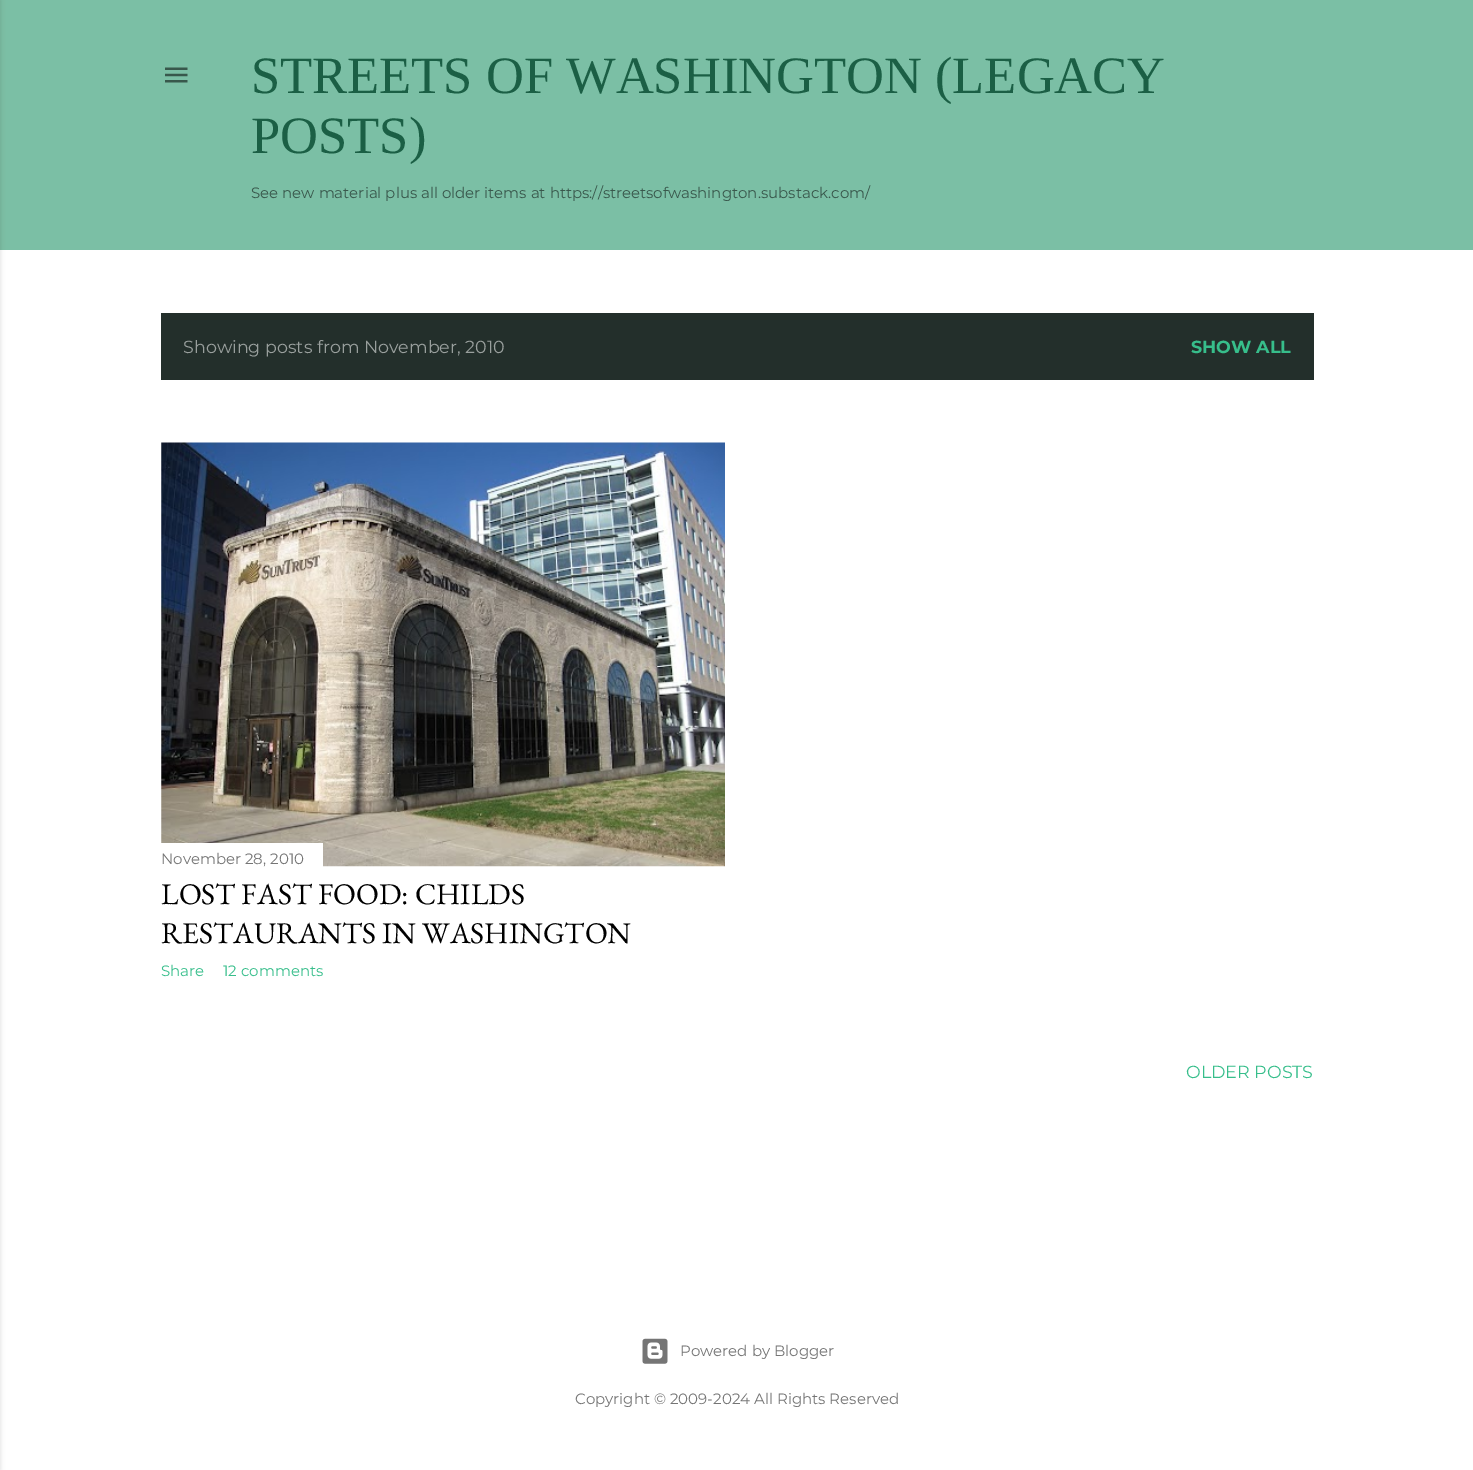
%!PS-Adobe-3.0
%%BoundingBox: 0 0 1473 1470
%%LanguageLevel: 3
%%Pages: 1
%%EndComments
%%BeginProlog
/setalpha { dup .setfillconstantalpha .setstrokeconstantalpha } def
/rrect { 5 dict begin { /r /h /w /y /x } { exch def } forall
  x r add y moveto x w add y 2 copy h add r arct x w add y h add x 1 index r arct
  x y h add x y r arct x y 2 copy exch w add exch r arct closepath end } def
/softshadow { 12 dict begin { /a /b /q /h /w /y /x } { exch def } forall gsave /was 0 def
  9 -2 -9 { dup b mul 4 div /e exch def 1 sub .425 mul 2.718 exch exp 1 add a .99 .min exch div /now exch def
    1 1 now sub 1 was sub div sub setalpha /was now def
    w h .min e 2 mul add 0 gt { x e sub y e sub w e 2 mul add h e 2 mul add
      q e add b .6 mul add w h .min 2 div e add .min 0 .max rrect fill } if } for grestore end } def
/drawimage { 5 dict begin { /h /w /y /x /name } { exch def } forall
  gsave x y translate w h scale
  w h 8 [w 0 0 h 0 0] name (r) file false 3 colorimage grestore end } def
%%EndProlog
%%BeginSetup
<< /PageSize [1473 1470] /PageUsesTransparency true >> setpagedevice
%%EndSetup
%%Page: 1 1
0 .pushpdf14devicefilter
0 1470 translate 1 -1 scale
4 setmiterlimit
1 setgray
0 0 1473 1470 rectfill
0.482 0.749 0.647 setrgbcolor
0 0 1473 250 rectfill
0 setgray
-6 0 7 1470 0 2 0.1 softshadow
(images/1.raw) 165 67 23 16 drawimage
0.137 0.184 0.169 setrgbcolor
161 313 1153 67 rectfill
(images/2.raw) 161 442 564 425 drawimage
1 setgray
161 843 162 24 rectfill
(images/3.raw) 642 1338 26 26 drawimage
/LiberationSerif-Regular [52.5 0 0 -52.5 0 0] selectfont
0.106 0.373 0.271 setrgbcolor
251 93 moveto (STREETS OF WASHINGTON \(LEGACY) show
251 153 moveto (POSTS\)) show
/Montserrat-Regular [15 0 0 -15 0 0] selectfont
0.224 0.345 0.298 setrgbcolor
251 198 moveto (See new material plus all older items at https://streetsofwashington.substack.com/) show
/Montserrat-Regular [17.5 0 0 -17.5 0 0] selectfont
0.6 0.624 0.616 setrgbcolor
183 353 moveto (Showing posts from November, 2010) show
/Montserrat-Bold [17.5 0 0 -17.5 0 0] selectfont
0.216 0.745 0.545 setrgbcolor
1191 353 moveto (SHOW ALL) show
/Montserrat-Regular [15 0 0 -15 0 0] selectfont
0.459 setgray
161 864 moveto (November 28, 2010) show
/EBGaramond-Regular [30 0 0 -30 0 0] selectfont
0 setgray
161 904 moveto (LOST FAST FOOD: CHILDS) show
161 943 moveto (RESTAURANTS IN WASHINGTON) show
/Montserrat-Regular [15 0 0 -15 0 0] selectfont
0.216 0.745 0.545 setrgbcolor
161 976 moveto (Share) show
223 976 moveto (12 comments) show
/Montserrat-Regular [17.5 0 0 -17.5 0 0] selectfont
1186 1078 moveto (OLDER POSTS) show
/Montserrat-Regular [15 0 0 -15 0 0] selectfont
0.459 setgray
680 1356 moveto (Powered by Blogger) show
575 1404 moveto (Copyright © 2009-2024 All Rights Reserved) show
.poppdf14devicefilter showpage
%%EOF
